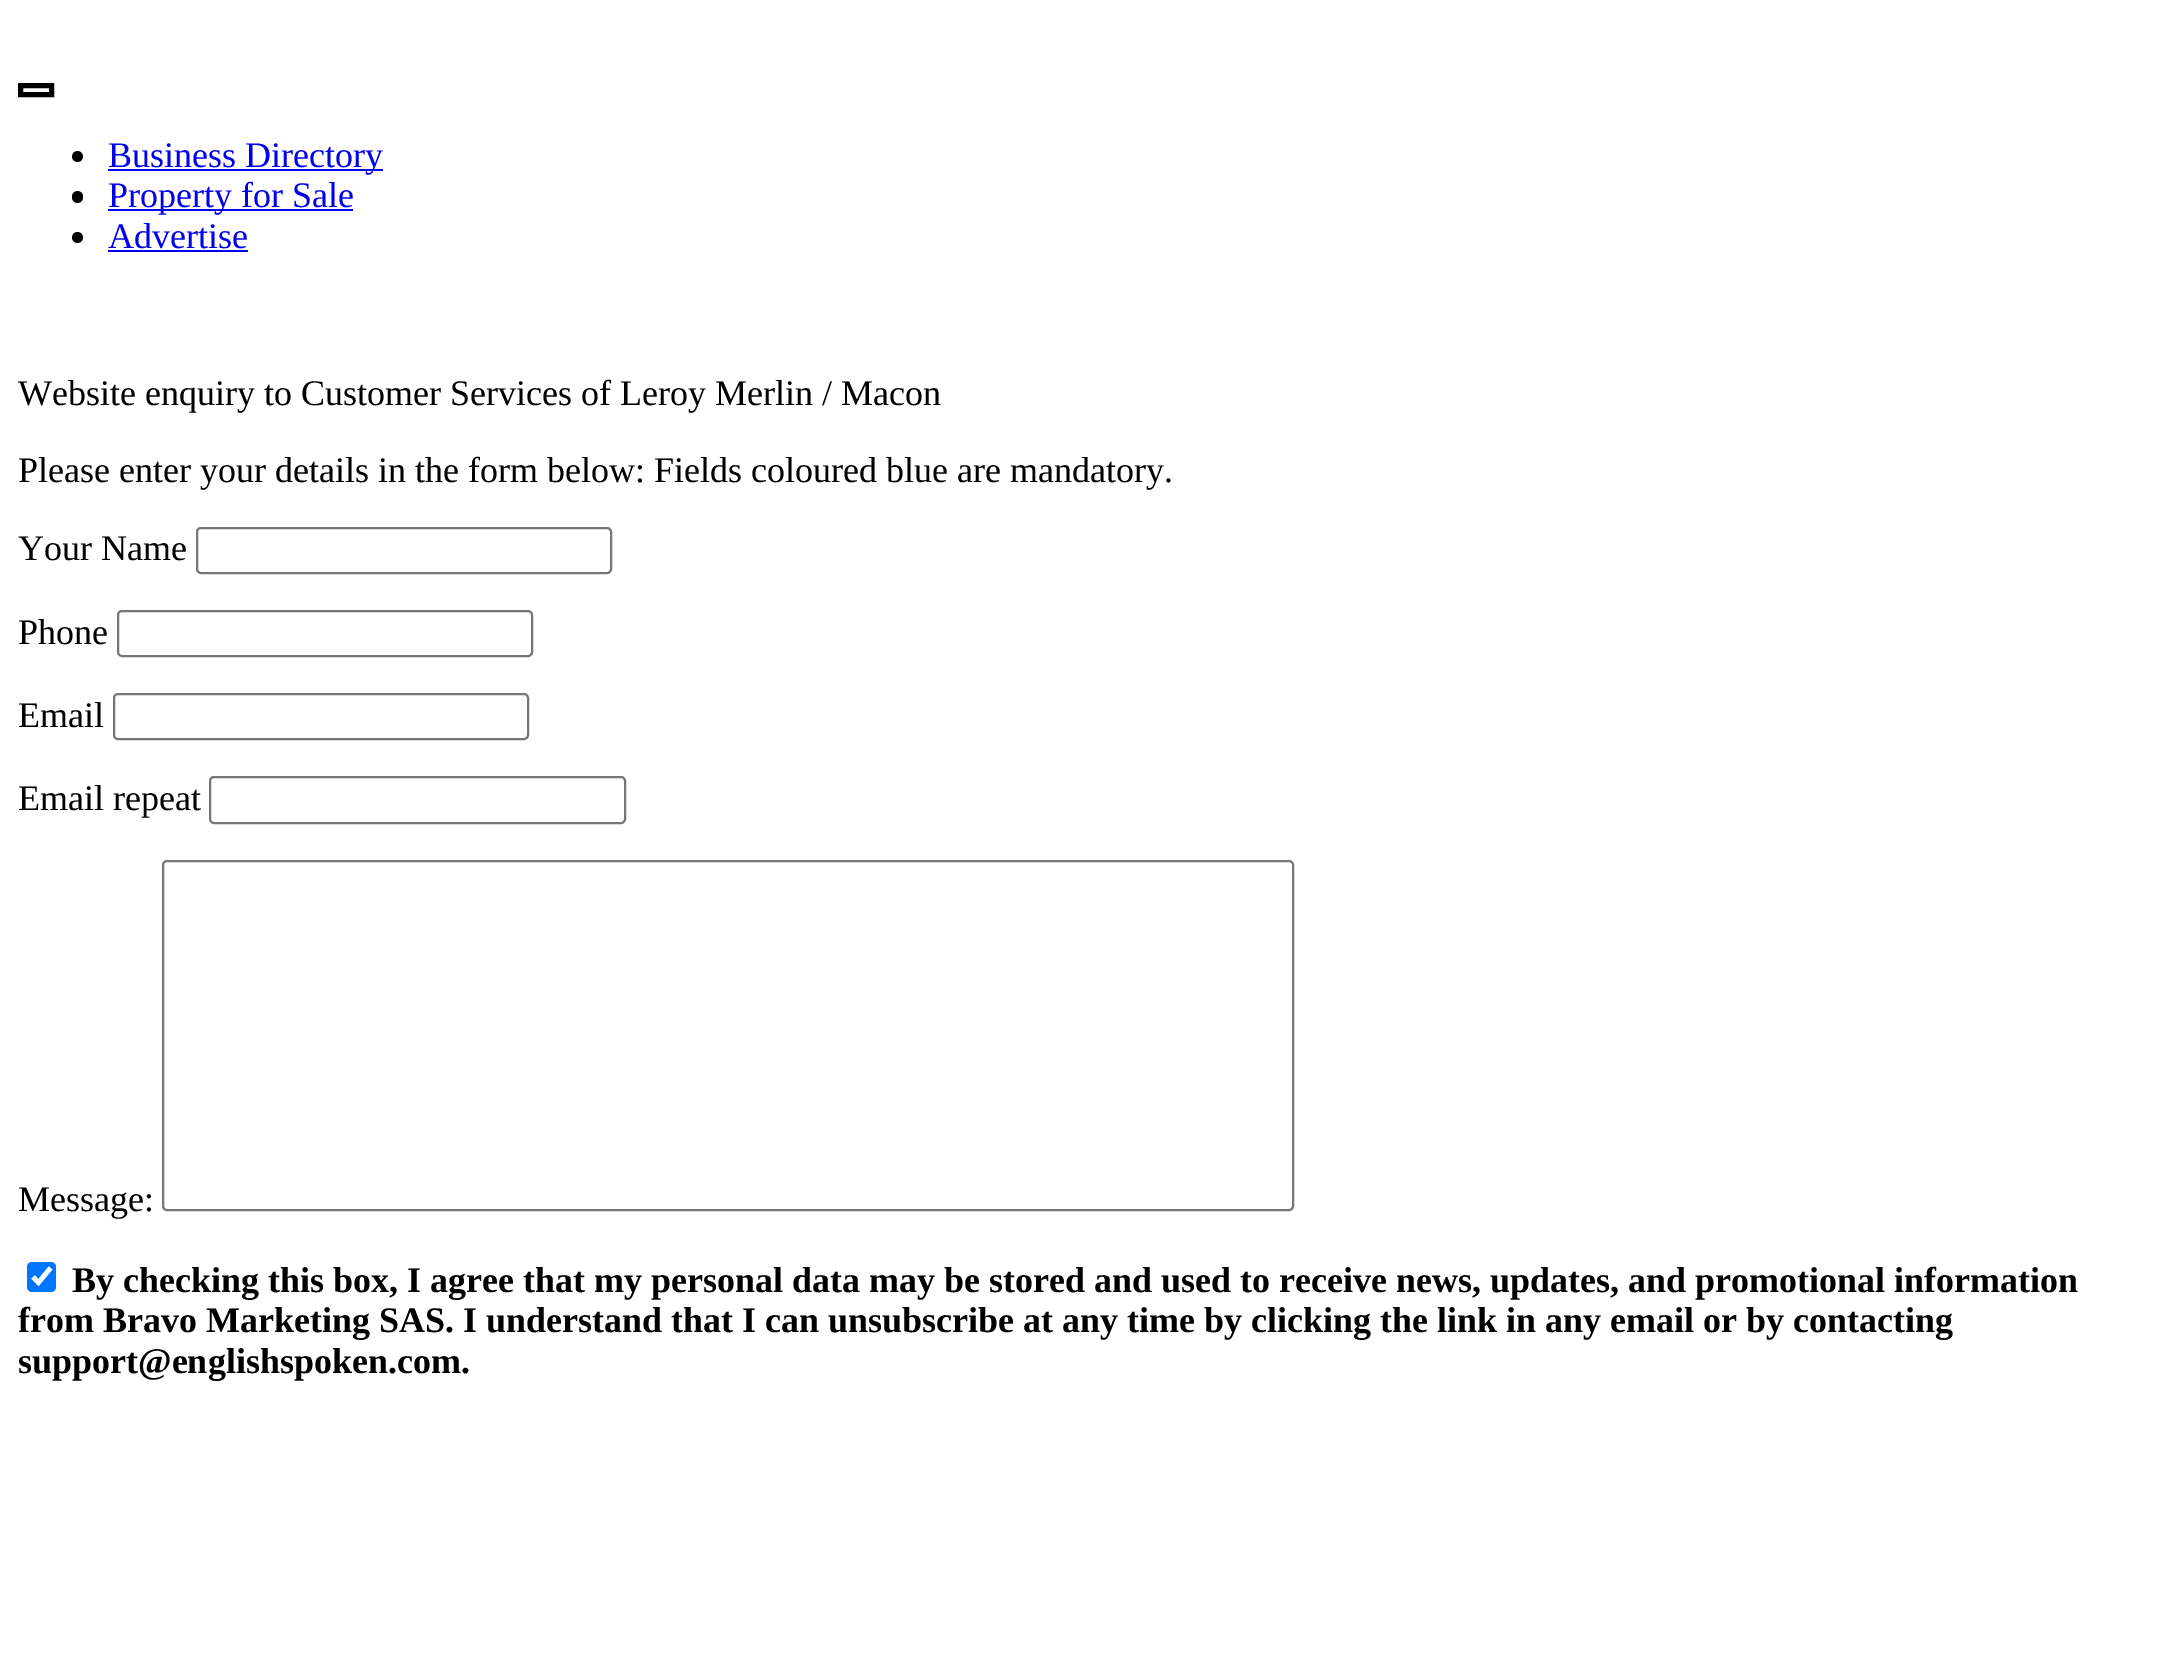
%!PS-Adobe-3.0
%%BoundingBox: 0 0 2173 1671
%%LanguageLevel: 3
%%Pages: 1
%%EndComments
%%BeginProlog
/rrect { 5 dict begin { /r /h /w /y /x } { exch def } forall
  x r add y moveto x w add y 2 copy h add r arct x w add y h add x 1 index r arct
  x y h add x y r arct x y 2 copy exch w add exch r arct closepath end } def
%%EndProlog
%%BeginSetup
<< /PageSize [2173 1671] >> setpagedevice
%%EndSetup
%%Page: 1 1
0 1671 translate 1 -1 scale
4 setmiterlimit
1 setgray
0 0 2173 1671 rectfill
0 setgray
5 setlinewidth
20.5 85.5 31 9 rectstroke
newpath 77.5 156.5 5.5 0 360 arc closepath fill
0 0 0.933 setrgbcolor
108 169 275 2 rectfill
0 setgray
72 191 11 12 5.5 rrect fill
0 0 0.933 setrgbcolor
108 209 245 2 rectfill
0 setgray
newpath 77.5 237.5 5.5 0 360 arc closepath fill
0 0 0.933 setrgbcolor
108 250 140 2 rectfill
0.463 setgray
2 setlinewidth
197 528 414 45 4 rrect stroke
118 611 414 45 4 rrect stroke
114 694 414 45 4 rrect stroke
210 777 415 46 4 rrect stroke
163 861 1130 349 4 rrect stroke
0 0.459 1 setrgbcolor
27 1262 29 30 5 rrect fill
1 setgray
4.7 setlinewidth
newpath 33 1277 moveto 38.5 1282.5 lineto 50.5 1268 lineto stroke
/LiberationSerif-Regular [36 0 0 -36 0 0] selectfont
0 0 0.933 setrgbcolor
108 167 moveto (Business Directory) show
108 207 moveto (Property for Sale) show
108 248 moveto (Advertise) show
0 setgray
18 405 moveto (Website enquiry to Customer Services of Leroy Merlin / Macon) show
18 482 moveto (Please enter your details in the form below: Fields coloured blue are mandatory.) show
18 560 moveto (Your Name) show
18 644 moveto (Phone) show
18 727 moveto (Email) show
18 810 moveto (Email repeat) show
18 1211 moveto (Message:) show
/LiberationSerif-Bold [36 0 0 -36 0 0] selectfont
72 1292 moveto (By checking this box, I agree that my personal data may be stored and used to receive news, updates, and promotional information) show
18 1332 moveto (from Bravo Marketing SAS. I understand that I can unsubscribe at any time by clicking the link in any email or by contacting) show
18 1373 moveto (support@englishspoken.com.) show
showpage
%%EOF
